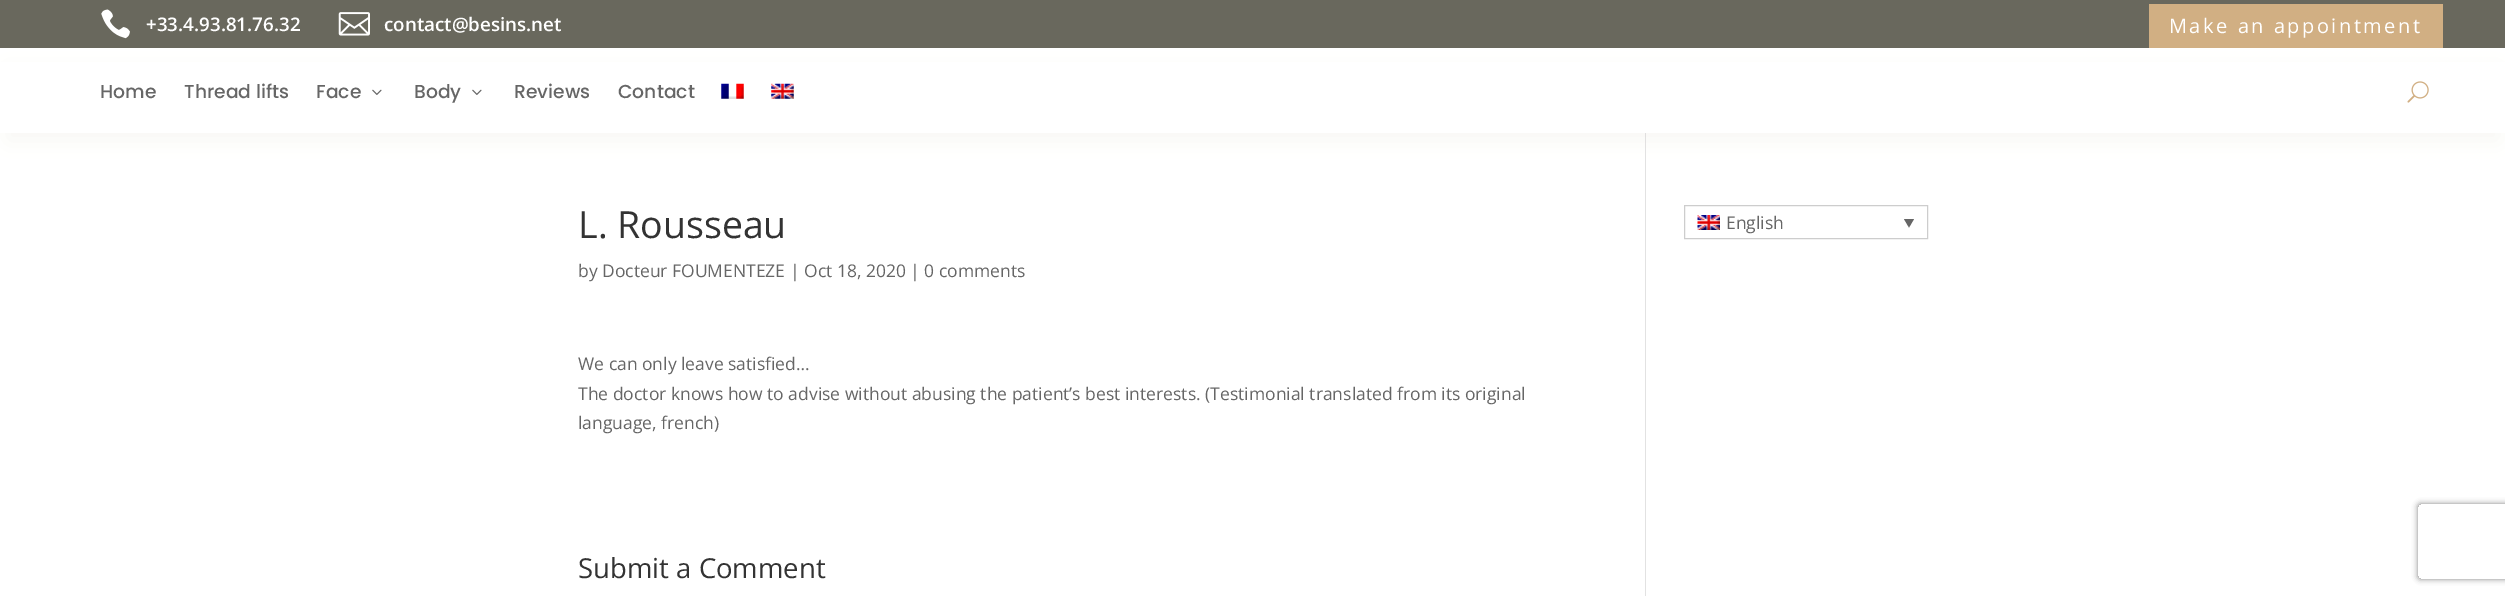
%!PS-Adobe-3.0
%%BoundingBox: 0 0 2505 596
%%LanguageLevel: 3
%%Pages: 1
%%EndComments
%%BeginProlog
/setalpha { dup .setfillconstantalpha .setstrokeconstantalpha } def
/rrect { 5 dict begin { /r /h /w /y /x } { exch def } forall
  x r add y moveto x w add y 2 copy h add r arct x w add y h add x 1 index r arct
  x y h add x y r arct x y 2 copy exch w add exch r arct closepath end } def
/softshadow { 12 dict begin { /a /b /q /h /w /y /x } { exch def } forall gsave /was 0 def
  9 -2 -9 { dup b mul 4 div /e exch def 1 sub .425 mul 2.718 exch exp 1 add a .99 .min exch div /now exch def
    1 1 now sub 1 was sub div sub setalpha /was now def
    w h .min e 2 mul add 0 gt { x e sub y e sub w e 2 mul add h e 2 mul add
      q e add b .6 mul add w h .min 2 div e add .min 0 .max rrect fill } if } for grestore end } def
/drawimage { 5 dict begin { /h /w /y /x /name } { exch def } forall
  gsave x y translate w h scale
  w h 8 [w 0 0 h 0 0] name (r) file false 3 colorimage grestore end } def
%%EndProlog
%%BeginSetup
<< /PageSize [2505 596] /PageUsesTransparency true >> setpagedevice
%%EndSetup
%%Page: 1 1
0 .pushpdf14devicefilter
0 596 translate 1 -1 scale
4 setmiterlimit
1 setgray
0 0 2505 596 rectfill
0.412 0.408 0.365 setrgbcolor
0 0 2505 48 rectfill
(images/1.raw) 101 9 29 30 drawimage
(images/2.raw) 338 12 32 24 drawimage
0.82 0.686 0.514 setrgbcolor
2149 4 294 44 rectfill
0.886 setgray
1645 133 1 463 rectfill
0.82 0.773 0.729 setrgbcolor
8 70 2490 70 0 11 0.16 softshadow
1 setgray
0 62 2505 71 rectfill
(images/3.raw) 372 89 10 6 drawimage
(images/3.raw) 472 89 10 6 drawimage
(images/4.raw) 721 83 23 16 drawimage
(images/5.raw) 771 83 23 16 drawimage
(images/6.raw) 2407 81 22 22 drawimage
0.804 setgray
1684.5 205.5 243 33 rectstroke
(images/7.raw) 1697 215 23 15 drawimage
0.4 setgray
newpath 1904 219 moveto 1914 219 lineto 1909 227.5 lineto closepath fill
gsave
newpath 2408 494 moveto 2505 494 lineto 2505 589 lineto 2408 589 lineto closepath 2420.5 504 moveto 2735.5 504 lineto 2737 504 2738 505 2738 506.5 curveto 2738 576.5 lineto 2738 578 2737 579 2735.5 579 curveto 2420.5 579 lineto 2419 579 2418 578 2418 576.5 curveto 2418 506.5 lineto 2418 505 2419 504 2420.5 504 curveto closepath eoclip newpath
0.502 setgray
2418 504 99 75 2.5 3 1 softshadow
grestore
/OpenSans-SemiBold [18.75 0 0 -18.75 0 0] selectfont
1 setgray
146 31 moveto (+33.4.93.81.76.32) show
384 31 moveto (contact@besins.net) show
/OpenSans-Regular [20 0 0 -20 0 0] selectfont
2169 33 moveto 2.5 0 (Make an appointment) ashow
/Poppins-Medium [18.75 0 0 -18.75 0 0] selectfont
0.4 setgray
100 98 moveto (Home) show
184 98 moveto (Thread lifts) show
316 98 moveto (Face) show
414 98 moveto (Body) show
514 98 moveto (Reviews) show
618 98 moveto (Contact) show
/OpenSans-Regular [37.5 0 0 -37.5 0 0] selectfont
0.2 setgray
578 238 moveto (L. Rousseau) show
/OpenSans-Regular [17.5 0 0 -17.5 0 0] selectfont
0.4 setgray
578 277 moveto (by Docteur FOUMENTEZE | Oct 18, 2020 | 0 comments) show
578 370 moveto (We can only leave satisfied…) show
578 400 moveto (The doctor knows how to advise without abusing the patient’s best interests. \(Testimonial translated from its original) show
578 429 moveto (language, french\)) show
/OpenSans-Regular [27.5 0 0 -27.5 0 0] selectfont
0.2 setgray
578 578 moveto (Submit a Comment) show
/OpenSans-Regular [17.5 0 0 -17.5 0 0] selectfont
0.4 setgray
1726 229 moveto (English) show
.poppdf14devicefilter showpage
%%EOF
